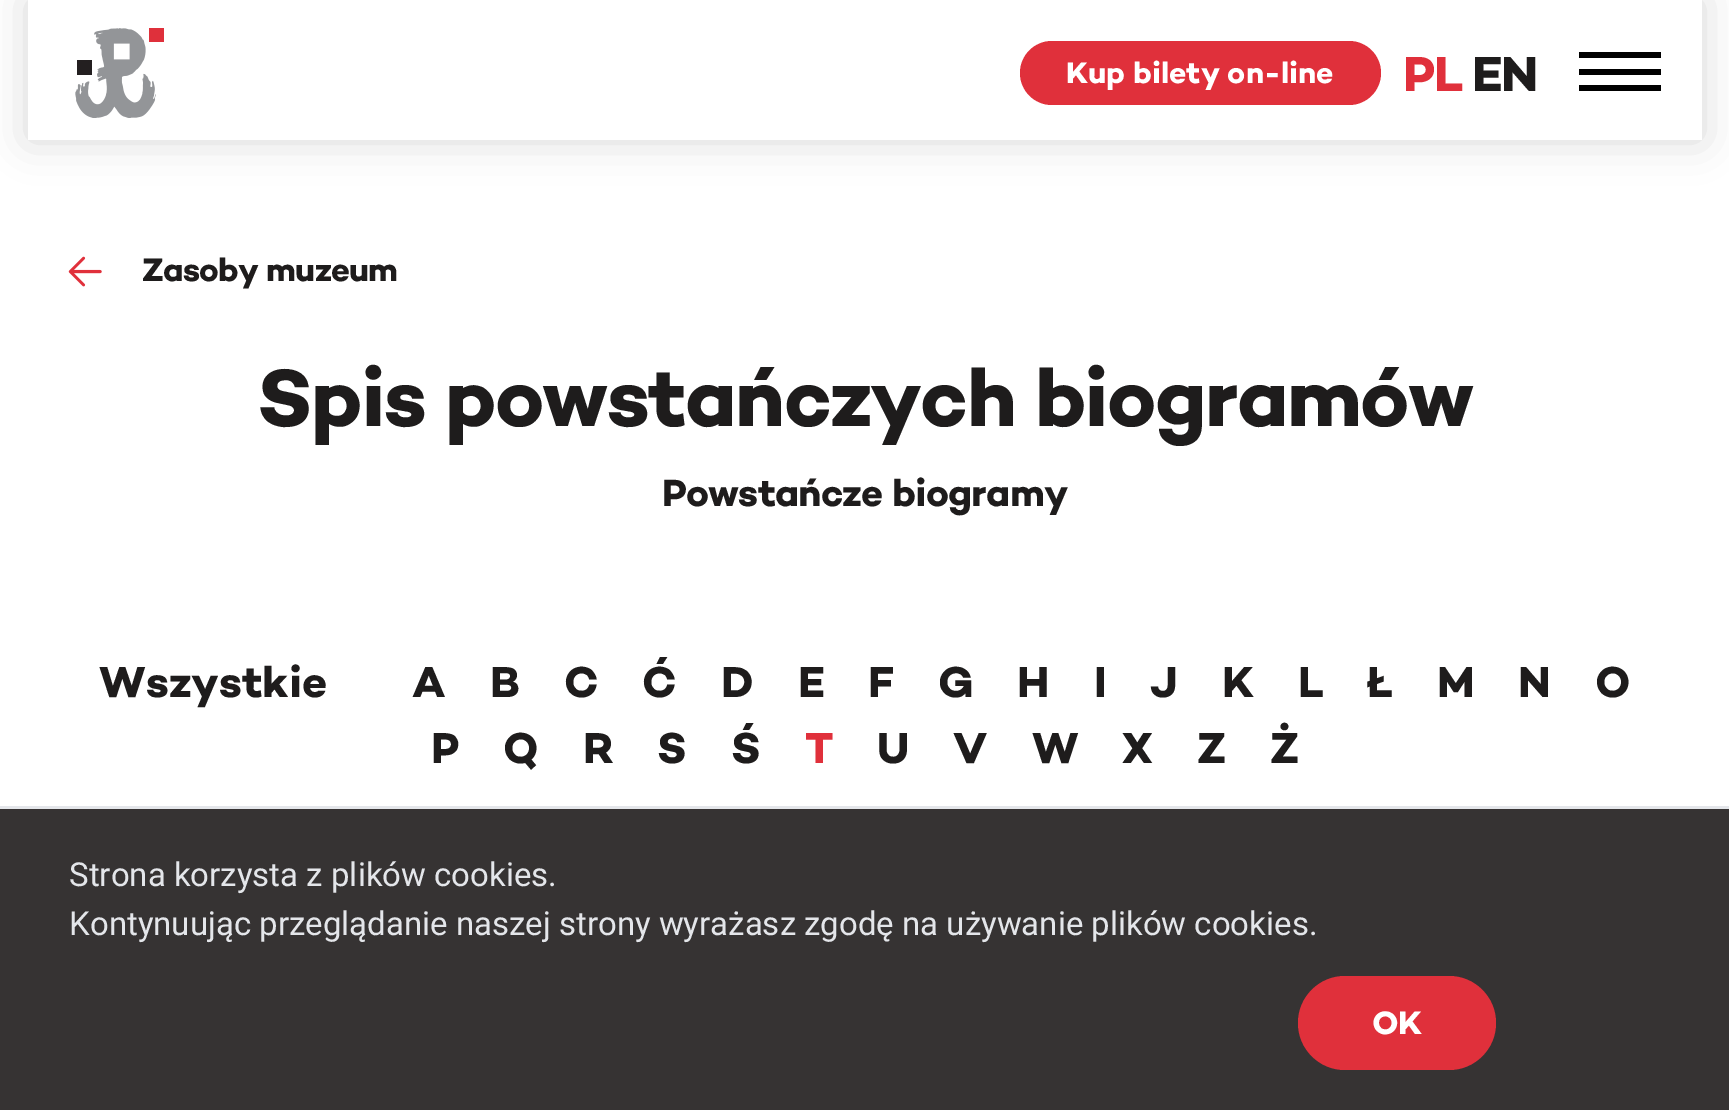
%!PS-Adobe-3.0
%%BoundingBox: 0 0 1729 1110
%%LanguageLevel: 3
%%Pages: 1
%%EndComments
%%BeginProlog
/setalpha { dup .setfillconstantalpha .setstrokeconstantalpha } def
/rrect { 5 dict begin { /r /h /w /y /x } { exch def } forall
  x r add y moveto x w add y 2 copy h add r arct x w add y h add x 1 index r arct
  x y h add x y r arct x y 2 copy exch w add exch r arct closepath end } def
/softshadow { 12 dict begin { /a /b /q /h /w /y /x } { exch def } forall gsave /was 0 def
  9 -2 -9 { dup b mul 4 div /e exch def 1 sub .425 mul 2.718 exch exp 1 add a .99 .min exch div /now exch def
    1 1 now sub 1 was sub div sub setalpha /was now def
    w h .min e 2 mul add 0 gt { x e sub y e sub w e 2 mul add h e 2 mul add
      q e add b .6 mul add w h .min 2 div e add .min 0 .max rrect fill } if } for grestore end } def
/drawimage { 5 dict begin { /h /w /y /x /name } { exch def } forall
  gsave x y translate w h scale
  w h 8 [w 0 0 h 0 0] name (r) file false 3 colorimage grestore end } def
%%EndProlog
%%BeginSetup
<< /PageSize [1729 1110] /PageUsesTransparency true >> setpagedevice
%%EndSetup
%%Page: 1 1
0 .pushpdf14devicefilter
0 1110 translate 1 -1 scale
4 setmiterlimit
1 setgray
0 0 1729 1110 rectfill
gsave
newpath 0 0 moveto 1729 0 lineto 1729 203 lineto 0 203 lineto closepath 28 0 moveto 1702 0 lineto 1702 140 lineto 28 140 lineto closepath eoclip newpath
0 setgray
28 0 1674 140 0 20.5 0.15 softshadow
grestore
(images/1.raw) 75 28 89 90 drawimage
0.878 0.188 0.231 setrgbcolor
1020 41 361 64 32 rrect fill
0 setgray
1579 52 82 6 rectfill
1579 69 82 6 rectfill
1579 85 82 6 rectfill
(images/2.raw) 68 256 34 31 drawimage
0.212 0.2 0.2 setrgbcolor
0 809 1729 301 rectfill
0.894 0.902 0.918 setrgbcolor
0 806 1729 3 rectfill
0.878 0.188 0.231 setrgbcolor
1298 976 198 94 47 rrect fill
/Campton-Bold [30.25 0 0 -30.25 0 0] selectfont
1 setgray
1066 83 moveto (Kup bilety on-line) show
/Campton-Bold [50 0 0 -50 0 0] selectfont
0.878 0.188 0.231 setrgbcolor
1403 91 moveto -1 0 (PL) ashow
0.118 0.11 0.11 setrgbcolor
1472 91 moveto -1 0 (EN) ashow
/Campton-Bold [33 0 0 -33 0 0] selectfont
142 281 moveto -0.7 0 (Zasoby muzeum) ashow
/Campton-Bold [82.5 0 0 -82.5 0 0] selectfont
257 426 moveto -1.65 0 (Spis powstańczych biogramów) ashow
/Campton-Bold [38.5 0 0 -38.5 0 0] selectfont
662 506 moveto -0.75 0 (Powstańcze biogramy) ashow
/Campton-Bold [44 0 0 -44 0 0] selectfont
99 697 moveto (Wszystkie) show
412 697 moveto (A) show
490 697 moveto (B) show
564 697 moveto (C) show
642 697 moveto (Ć) show
721 697 moveto (D) show
798 697 moveto (E) show
868 697 moveto (F) show
938 697 moveto (G) show
1017 697 moveto (H) show
1094 697 moveto (I) show
1150 697 moveto (J) show
1222 697 moveto (K) show
1298 697 moveto (L) show
1367 697 moveto (Ł) show
1437 697 moveto (M) show
1518 697 moveto (N) show
1595 697 moveto (O) show
431 763 moveto (P) show
503 763 moveto (Q) show
583 763 moveto (R) show
657 763 moveto (S) show
731 763 moveto (Ś) show
0.878 0.188 0.231 setrgbcolor
805 763 moveto (T) show
0.118 0.11 0.11 setrgbcolor
877 763 moveto (U) show
953 763 moveto (V) show
1032 763 moveto (W) show
1122 763 moveto (X) show
1197 763 moveto (Z) show
1270 763 moveto (Ż) show
/Roboto-Regular [33 0 0 -33 0 0] selectfont
0.894 0.902 0.918 setrgbcolor
69 886 moveto (Strona korzysta z plików cookies.) show
69 935 moveto (Kontynuując przeglądanie naszej strony wyrażasz zgodę na używanie plików cookies.) show
/Campton-Bold [33 0 0 -33 0 0] selectfont
1 setgray
1372 1034 moveto -0.7 0 (OK) ashow
.poppdf14devicefilter showpage
%%EOF
